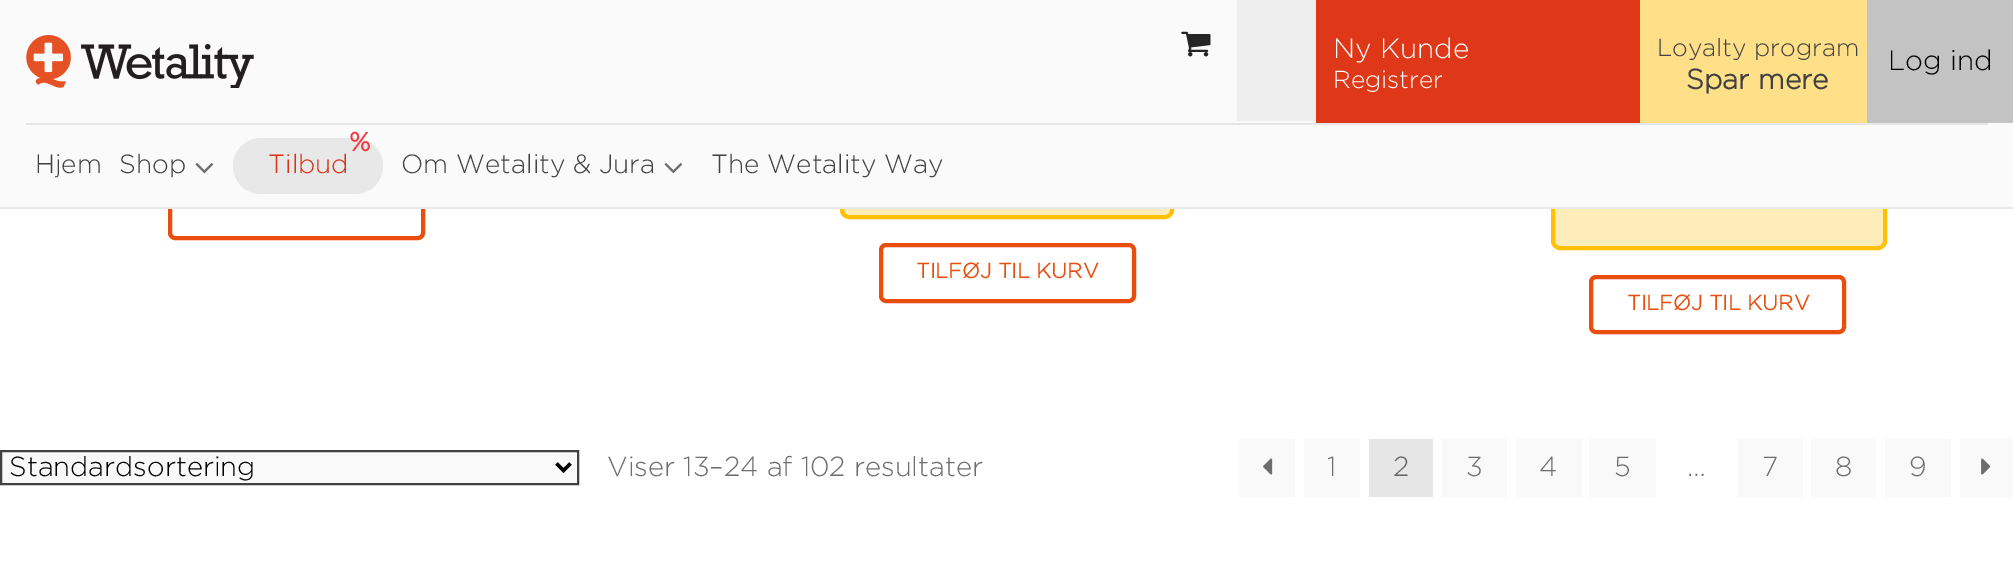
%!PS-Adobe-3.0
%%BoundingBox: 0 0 2013 579
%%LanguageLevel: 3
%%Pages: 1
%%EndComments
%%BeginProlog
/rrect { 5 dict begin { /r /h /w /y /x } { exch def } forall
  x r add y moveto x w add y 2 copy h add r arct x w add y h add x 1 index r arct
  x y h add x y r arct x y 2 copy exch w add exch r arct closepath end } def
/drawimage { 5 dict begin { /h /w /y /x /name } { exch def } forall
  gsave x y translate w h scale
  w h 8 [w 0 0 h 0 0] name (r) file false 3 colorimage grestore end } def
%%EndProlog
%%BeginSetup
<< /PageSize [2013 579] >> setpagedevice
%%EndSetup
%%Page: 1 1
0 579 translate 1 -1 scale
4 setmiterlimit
1 setgray
0 0 2013 579 rectfill
0.914 0.306 0.059 setrgbcolor
4 setlinewidth
170 182 253 56 5 rrect stroke
1 0.929 0.725 setrgbcolor
842 147 330 70 7 rrect gsave fill grestore
1 0.757 0.027 setrgbcolor
stroke
1 0.929 0.725 setrgbcolor
1553 179 332 69 7 rrect gsave fill grestore
1 0.757 0.027 setrgbcolor
stroke
0.98 setgray
0 0 2013 207 rectfill
0.914 0.91 0.91 setrgbcolor
0 207 2013 2 rectfill
(images/1.raw) 26 35 228 53 drawimage
(images/2.raw) 1181 31 30 26 drawimage
0.933 setgray
1237 0 79 121 rectfill
0.871 0.22 0.094 setrgbcolor
1316 0 324 123 rectfill
1 0.878 0.533 setrgbcolor
1640 0 227 123 rectfill
0.765 setgray
1867 0 146 123 rectfill
0.902 setgray
26 123 1962 2 rectfill
(images/3.raw) 195 163 19 11 drawimage
0.91 setgray
233 138 150 56 28 rrect fill
(images/3.raw) 664 163 19 11 drawimage
0.914 0.306 0.059 setrgbcolor
881 245 253 56 5 rrect stroke
1591 277 253 55 5 rrect stroke
0.976 setgray
newpath 1 451 moveto 578 451 lineto 578 484 lineto 1 484 lineto closepath gsave fill grestore
0.255 0.251 0.259 setrgbcolor
2 setlinewidth
stroke
0 setgray
3.5 setlinewidth
newpath 556.5 463.5 moveto 563.5 470.5 lineto 570.5 463.5 lineto stroke
0.976 setgray
1239 439 56 58 rectfill
(images/4.raw) 1263 458 10 17 drawimage
1304 439 56 58 rectfill
0.902 setgray
1369 439 64 58 rectfill
0.976 setgray
1442 439 65 58 rectfill
1516 439 66 58 rectfill
1589 439 67 58 rectfill
1738 439 65 58 rectfill
1811 439 65 58 rectfill
1885 439 66 58 rectfill
1960 439 53 58 rectfill
(images/5.raw) 1981 458 10 17 drawimage
/Gotham-Light [28 0 0 -28 0 0] selectfont
1 setgray
1333 58 moveto (Ny Kunde) show
/Gotham-Light [24.5 0 0 -24.5 0 0] selectfont
1333 88 moveto (Registrer) show
0.255 setgray
1657 56 moveto (Loyalty program) show
/Gotham-Bold [28 0 0 -28 0 0] selectfont
1686 89 moveto (Spar mere) show
/Gotham-Light [28 0 0 -28 0 0] selectfont
0 setgray
1888 70 moveto (Log ind) show
/Gotham-Light [26.25 0 0 -26.25 0 0] selectfont
0.255 setgray
35 173 moveto (Hjem) show
119 173 moveto (Shop) show
/Gotham-Bold [26.25 0 0 -26.25 0 0] selectfont
0.933 0.227 0.259 setrgbcolor
349 151 moveto (%) show
/Gotham-Light [26.25 0 0 -26.25 0 0] selectfont
0.847 0.2 0.078 setrgbcolor
268 173 moveto (Tilbud) show
0.255 setgray
401 173 moveto (Om Wetality & Jura) show
711 173 moveto (The Wetality Way) show
/Gotham-Bold [21 0 0 -21 0 0] selectfont
0.914 0.306 0.059 setrgbcolor
916 278 moveto (TILFØJ TIL KURV) show
1627 310 moveto (TILFØJ TIL KURV) show
/Gotham-Light [27.5 0 0 -27.5 0 0] selectfont
0 setgray
9 476 moveto (Standardsortering) show
0.427 setgray
607 476 moveto (Viser 13–24 af 102 resultater) show
1327 476 moveto (1) show
0.388 setgray
1393 476 moveto (2) show
0.427 setgray
1466 476 moveto (3) show
1539 476 moveto (4) show
1614 476 moveto (5) show
1687 476 moveto (…) show
1762 476 moveto (7) show
1835 476 moveto (8) show
1909 476 moveto (9) show
showpage
%%EOF
